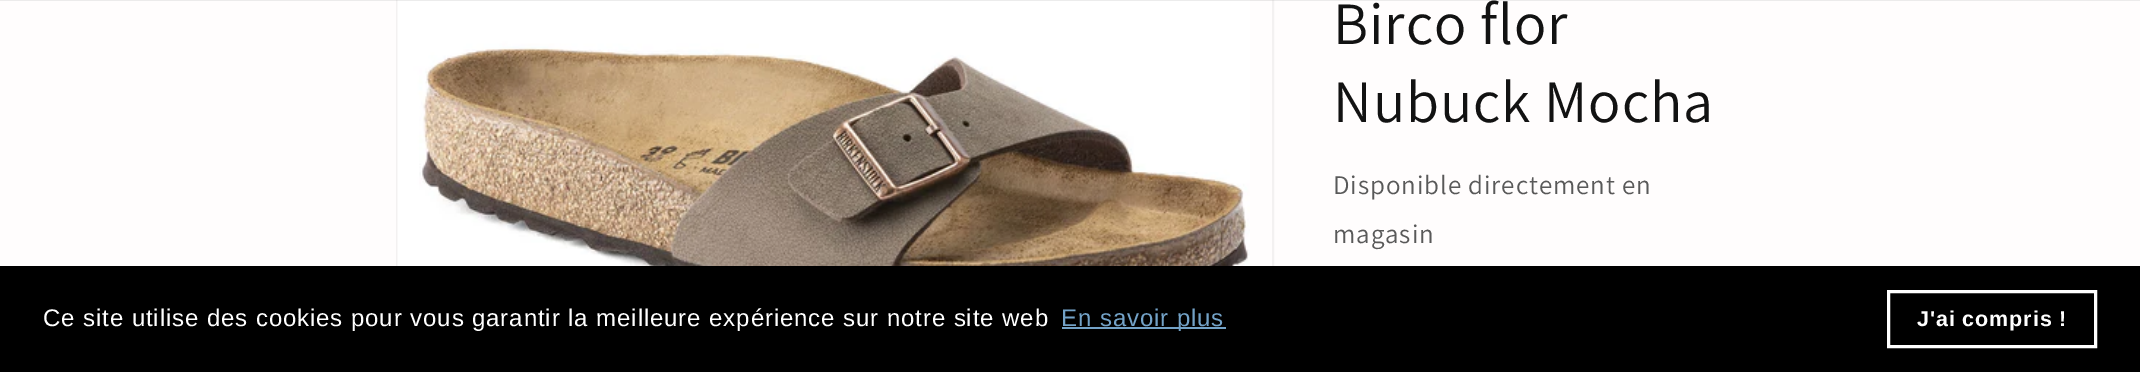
%!PS-Adobe-3.0
%%BoundingBox: 0 0 2140 372
%%LanguageLevel: 3
%%Pages: 1
%%EndComments
%%BeginProlog
/setalpha { dup .setfillconstantalpha .setstrokeconstantalpha } def
/drawimage { 5 dict begin { /h /w /y /x /name } { exch def } forall
  gsave x y translate w h scale
  w h 8 [w 0 0 h 0 0] name (r) file false 3 colorimage grestore end } def
%%EndProlog
%%BeginSetup
<< /PageSize [2140 372] /PageUsesTransparency true >> setpagedevice
%%EndSetup
%%Page: 1 1
0 .pushpdf14devicefilter
0 372 translate 1 -1 scale
4 setmiterlimit
1 0.992 0.992 setrgbcolor
0 0 2140 372 rectfill
0.953 0.945 0.945 setrgbcolor
2 setlinewidth
397 -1 876 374 rectstroke
(images/1.raw) 397 0 853 266 drawimage
0.08 setalpha
0.071 setgray
0 0 2140 1 rectfill
1 setalpha
0 setgray
0 266 2140 106 rectfill
0.451 0.635 0.78 setrgbcolor
1062 327 164 2 rectfill
1 setgray
3 setlinewidth
1888.5 291.5 207 55 rectstroke
/Assistant-Regular [60 0 0 -60 0 0] selectfont
0.071 setgray
1333 44 moveto 0.9 0 (Birco flor) ashow
1333 122 moveto 0.9 0 (Nubuck Mocha) ashow
/Assistant-Regular [27 0 0 -27 0 0] selectfont
0.349 setgray
1333 194 moveto 0.9 0 (Disponible directement en) ashow
1333 243 moveto 0.9 0 (magasin) ashow
/LiberationSans-Regular [24 0 0 -24 0 0] selectfont
1 setgray
43 326 moveto 0.9 0 (Ce site utilise des cookies pour vous garantir la meilleure expérience sur notre site web) ashow
0.451 0.635 0.78 setrgbcolor
1061 326 moveto 0.9 0 (En savoir plus) ashow
/LiberationSans-Bold [21.5 0 0 -21.5 0 0] selectfont
1 setgray
1917 326 moveto 0.9 0 (J'ai compris !) ashow
.poppdf14devicefilter showpage
%%EOF
